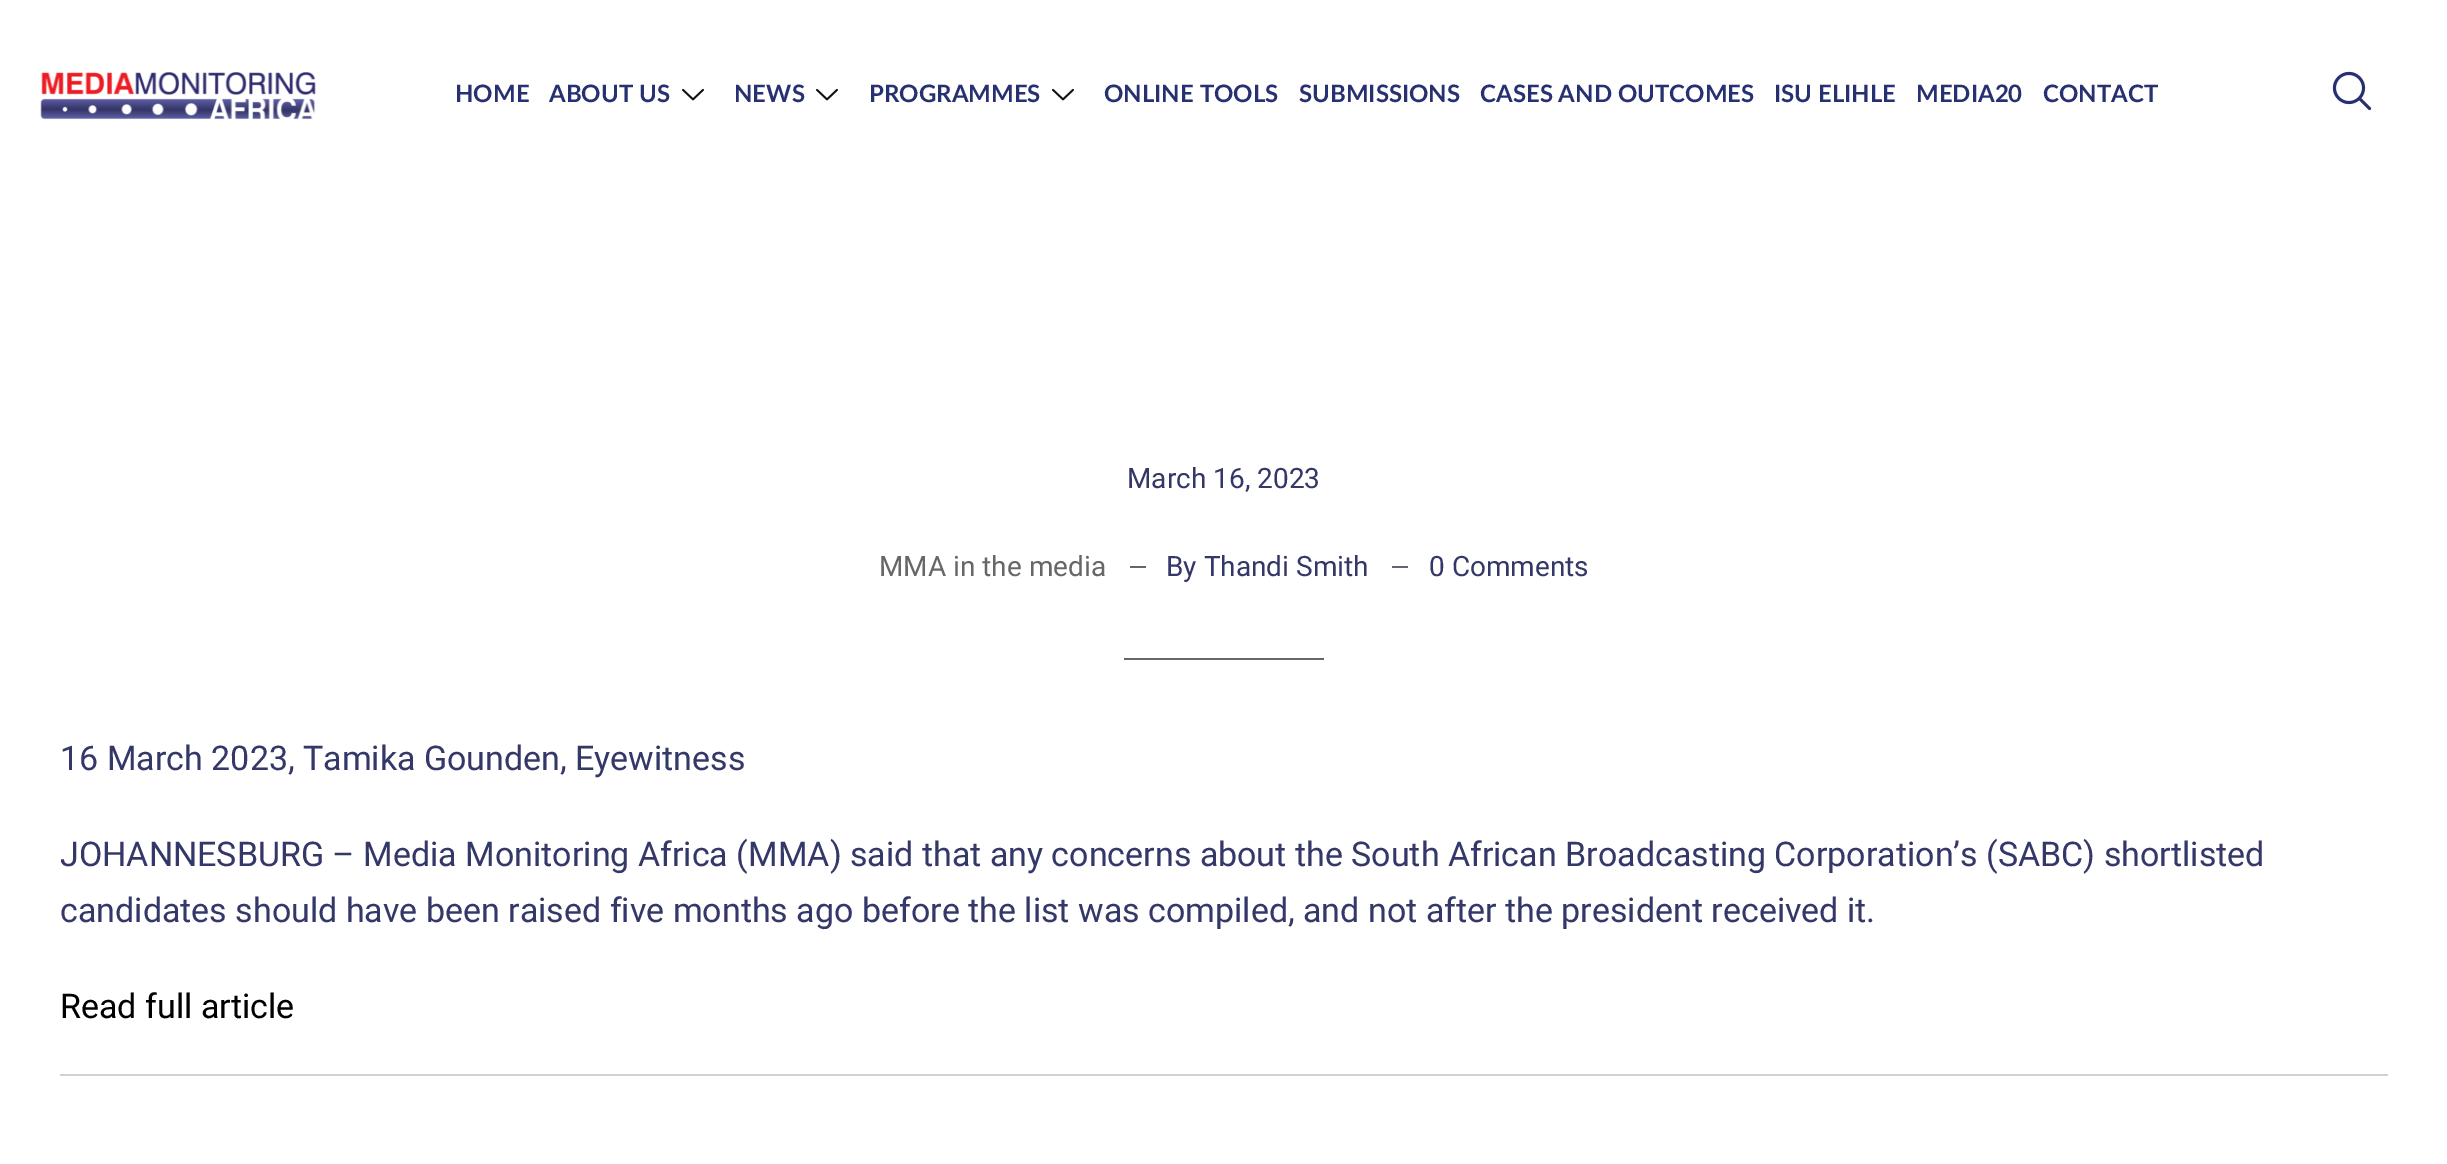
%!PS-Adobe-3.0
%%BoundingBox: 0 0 2447 1164
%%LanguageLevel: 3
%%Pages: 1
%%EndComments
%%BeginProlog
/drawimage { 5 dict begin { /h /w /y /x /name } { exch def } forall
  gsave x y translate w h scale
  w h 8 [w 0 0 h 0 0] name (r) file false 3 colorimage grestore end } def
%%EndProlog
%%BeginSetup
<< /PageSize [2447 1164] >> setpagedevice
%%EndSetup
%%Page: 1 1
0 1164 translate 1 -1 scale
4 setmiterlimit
1 setgray
0 0 2447 1164 rectfill
(images/1.raw) 40 72 276 48 drawimage
(images/2.raw) 682 88 22 13 drawimage
(images/2.raw) 816 88 22 13 drawimage
(images/2.raw) 1052 88 22 13 drawimage
(images/3.raw) 2332 71 40 40 drawimage
0.38 0.4 0.439 setrgbcolor
1130 566 16 2 rectfill
1392 566 16 2 rectfill
0.404 0.404 0.396 setrgbcolor
1124 658 200 2 rectfill
0.82 setgray
60 1074 2328 2 rectfill
/Lato-Bold [24 0 0 -24 0 0] selectfont
0.153 0.192 0.443 setrgbcolor
455 102 moveto (HOME) show
549 102 moveto (ABOUT US) show
734 102 moveto (NEWS) show
869 102 moveto (PROGRAMMES) show
1104 102 moveto (ONLINE TOOLS) show
1299 102 moveto (SUBMISSIONS) show
1480 102 moveto (CASES AND OUTCOMES) show
1774 102 moveto (ISU ELIHLE) show
1916 102 moveto (MEDIA20) show
2043 102 moveto (CONTACT) show
/Roboto-Regular [28 0 0 -28 0 0] selectfont
0.204 0.22 0.408 setrgbcolor
1127 488 moveto (March 16, 2023) show
0.404 0.404 0.4 setrgbcolor
879 576 moveto (MMA in the media) show
0.204 0.22 0.408 setrgbcolor
1166 576 moveto (By Thandi Smith) show
1429 576 moveto (0 Comments) show
/Roboto-Regular [34 0 0 -34 0 0] selectfont
60 770 moveto (16 March 2023, Tamika Gounden, Eyewitness) show
60 866 moveto (JOHANNESBURG – Media Monitoring Africa \(MMA\) said that any concerns about the South African Broadcasting Corporation’s \(SABC\) shortlisted) show
60 922 moveto (candidates should have been raised five months ago before the list was compiled, and not after the president received it.) show
0 setgray
60 1018 moveto (Read full article) show
showpage
%%EOF
